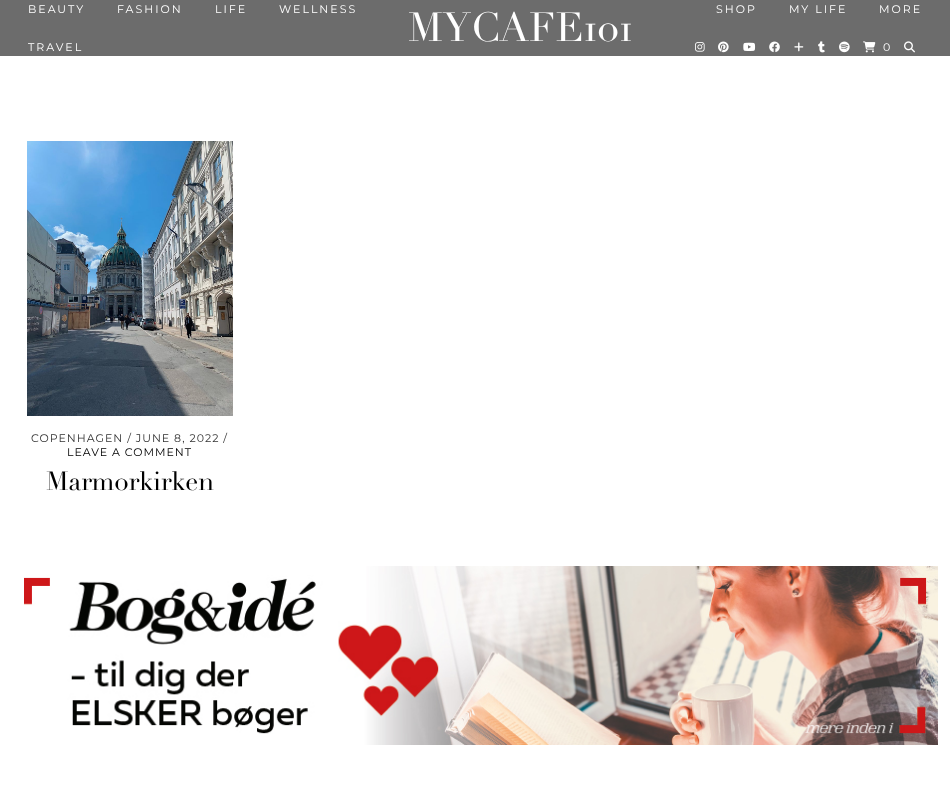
async function draw(canvas) {
	canvas.width = 950;
	canvas.height = 791;
	const c = canvas.getContext('2d');
	c.miterLimit = 4;
	c.fontKerning = 'normal';
	async function loadImage(src) {
		const img = new Image();
		img.src = src;
		await img.decode();
		return img;
	}

	c.fillStyle = '#fff';
	c.fillRect(0, 0, 950, 791);
	c.fillStyle = '#6c6c6c';
	c.fillRect(0, 0, 950, 56);
	c.letterSpacing = '2px';
	c.font = '100 11px Montserrat';
	c.fillStyle = '#fff';
	for (const [text, x, y] of [
		['BEAUTY', 28, 13],
		['FASHION', 117, 13],
		['LIFE', 215, 13],
		['WELLNESS', 279, 13],
		['TRAVEL', 28, 51],
	]) {
		c.fillText(text, x, y);
	}
	c.letterSpacing = '0px';
	c.font = '40px Didot';
	c.fillText('MYCAFE101', 408, 41);
	c.letterSpacing = '2px';
	c.font = '100 11px Montserrat';
	for (const [text, x, y] of [
		['SHOP', 716, 13],
		['MY LIFE', 789, 13],
		['MORE', 879, 13],
	]) {
		c.fillText(text, x, y);
	}
	c.drawImage(await loadImage('img1.png'), 695, 42, 10, 10);
	c.drawImage(await loadImage('img2.png'), 718, 41, 11, 12);
	c.drawImage(await loadImage('img3.png'), 743, 42, 13, 9);
	c.drawImage(await loadImage('img4.png'), 769, 41, 11, 12);
	c.drawImage(await loadImage('img5.png'), 794, 42, 10, 10);
	c.drawImage(await loadImage('img6.png'), 818, 41, 7, 12);
	c.drawImage(await loadImage('img7.png'), 839, 41, 11, 12);
	c.drawImage(await loadImage('img8.png'), 863, 41, 13, 12);
	c.fillText('0', 883, 51);
	c.drawImage(await loadImage('img9.png'), 904, 41, 11, 12);
	c.drawImage(await loadImage('img10.png'), 27, 141, 206, 275);
	c.letterSpacing = '1px';
	c.fillStyle = '#333';
	c.fillText('COPENHAGEN / JUNE 8, 2022 /', 31, 442);
	c.fillStyle = '#000';
	c.fillText('LEAVE A COMMENT', 67, 456);
	c.letterSpacing = '0px';
	c.font = '26px Didot';
	c.fillText('Marmorkirken', 46, 490);
	c.drawImage(await loadImage('img11.png'), 24, 566, 914, 179);
}

draw(document.querySelector('canvas'));
